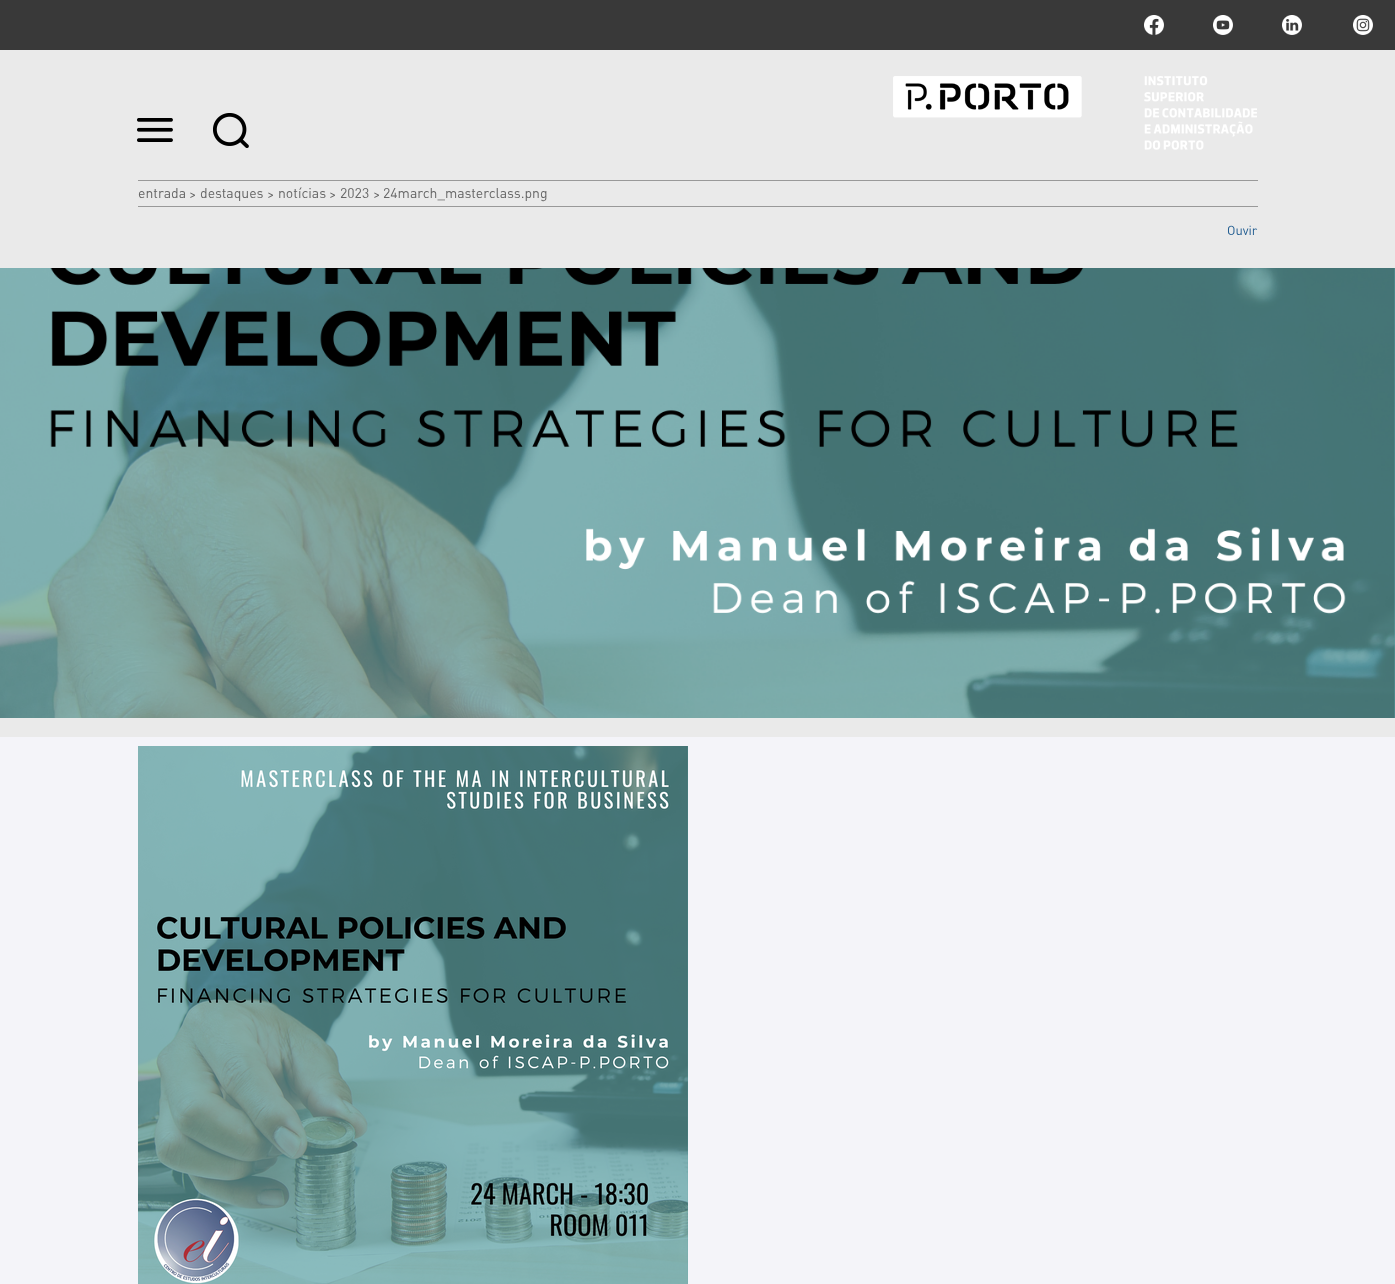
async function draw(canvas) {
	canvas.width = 1395;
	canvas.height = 1284;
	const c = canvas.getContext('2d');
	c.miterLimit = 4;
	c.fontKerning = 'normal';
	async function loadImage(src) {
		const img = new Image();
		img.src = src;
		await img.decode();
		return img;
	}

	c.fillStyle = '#f4f4f9';
	c.fillRect(0, 0, 1395, 1284);
	c.fillStyle = '#393939';
	c.fillRect(0, 0, 1395, 50);
	c.drawImage(await loadImage('img1.png'), 1144, 15, 20, 20);
	c.drawImage(await loadImage('img2.png'), 1213, 15, 20, 20);
	c.drawImage(await loadImage('img3.png'), 1282, 15, 20, 20);
	c.drawImage(await loadImage('img4.png'), 1353, 15, 20, 20);
	c.fillStyle = '#eaeaea';
	c.fillRect(0, 50, 1395, 687);
	c.drawImage(await loadImage('img5.png'), 137, 118, 36, 24);
	c.drawImage(await loadImage('img6.png'), 213, 113, 36, 35);
	c.drawImage(await loadImage('img7.png'), 893, 76, 364, 74);
	c.fillStyle = '#999';
	c.fillRect(138, 180, 1120, 1);
	c.fillRect(138, 206, 1120, 1);
	c.font = '14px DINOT';
	c.fillStyle = '#666';
	for (const [text, x, y] of [
		['entrada', 138, 198],
		['>', 189, 199],
		['destaques', 200, 198],
		['>', 267, 199],
		['notícias', 278, 198],
		['>', 329, 199],
		['2023', 340, 198],
		['>', 373, 199],
		['24march_masterclass.png', 383, 198],
	]) {
		c.fillText(text, x, y);
	}
	c.font = '13px DINOT';
	c.fillStyle = '#205c90';
	c.fillText('Ouvir', 1227, 235);
	c.drawImage(await loadImage('img8.png'), 0, 268, 1395, 450);
	c.drawImage(await loadImage('img9.png'), 138, 746, 550, 538);
}

draw(document.querySelector('canvas'));
